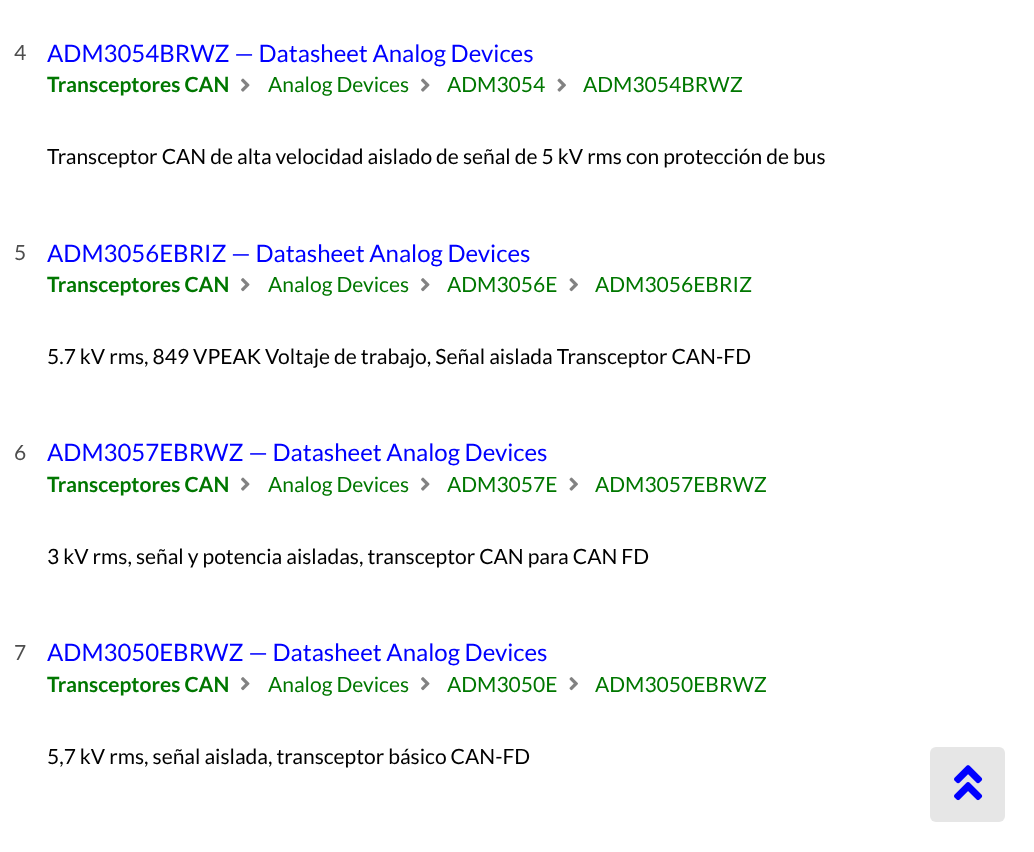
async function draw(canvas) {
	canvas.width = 1034;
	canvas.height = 852;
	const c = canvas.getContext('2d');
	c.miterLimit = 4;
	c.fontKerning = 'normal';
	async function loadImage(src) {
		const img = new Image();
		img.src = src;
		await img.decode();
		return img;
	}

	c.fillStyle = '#fff';
	c.fillRect(0, 0, 1034, 852);
	c.font = '21px Lato';
	c.fillStyle = '#4e4e4e';
	c.fillText('4', 14, 60);
	c.font = '24px Lato';
	c.fillStyle = '#00f';
	c.fillText('ADM3054BRWZ — Datasheet Analog Devices', 47, 62);
	c.font = 'bold 21px Lato';
	c.fillStyle = '#070';
	c.fillText('Transceptores CAN', 47, 92);
	c.drawImage(await loadImage('img1.png'), 241, 78, 9, 14);
	c.font = '21px Lato';
	c.fillText('Analog Devices', 268, 92);
	c.drawImage(await loadImage('img1.png'), 421, 78, 9, 14);
	c.fillText('ADM3054', 447, 92);
	c.drawImage(await loadImage('img2.png'), 557, 78, 9, 14);
	c.fillText('ADM3054BRWZ', 583, 92);
	c.fillStyle = '#000';
	c.fillText('Transceptor CAN de alta velocidad aislado de señal de 5 kV rms con protección de bus', 47, 164);
	c.fillStyle = '#4e4e4e';
	c.fillText('5', 14, 260);
	c.font = '24px Lato';
	c.fillStyle = '#00f';
	c.fillText('ADM3056EBRIZ — Datasheet Analog Devices', 47, 262);
	c.font = 'bold 21px Lato';
	c.fillStyle = '#070';
	c.fillText('Transceptores CAN', 47, 292);
	c.drawImage(await loadImage('img3.png'), 241, 278, 9, 14);
	c.font = '21px Lato';
	c.fillText('Analog Devices', 268, 292);
	c.drawImage(await loadImage('img3.png'), 421, 278, 9, 14);
	c.fillText('ADM3056E', 447, 292);
	c.drawImage(await loadImage('img4.png'), 569, 278, 9, 14);
	c.fillText('ADM3056EBRIZ', 595, 292);
	c.fillStyle = '#000';
	c.fillText('5.7 kV rms, 849 VPEAK Voltaje de trabajo, Señal aislada Transceptor CAN-FD', 47, 364);
	c.fillStyle = '#4e4e4e';
	c.fillText('6', 14, 460);
	c.font = '24px Lato';
	c.fillStyle = '#00f';
	c.fillText('ADM3057EBRWZ — Datasheet Analog Devices', 47, 461);
	c.font = 'bold 21px Lato';
	c.fillStyle = '#070';
	c.fillText('Transceptores CAN', 47, 492);
	c.drawImage(await loadImage('img1.png'), 241, 477, 9, 14);
	c.font = '21px Lato';
	c.fillText('Analog Devices', 268, 492);
	c.drawImage(await loadImage('img1.png'), 421, 477, 9, 14);
	c.fillText('ADM3057E', 447, 492);
	c.drawImage(await loadImage('img2.png'), 569, 477, 9, 14);
	c.fillText('ADM3057EBRWZ', 595, 492);
	c.fillStyle = '#000';
	c.fillText('3 kV rms, señal y potencia aisladas, transceptor CAN para CAN FD', 47, 564);
	c.fillStyle = '#4e4e4e';
	c.fillText('7', 14, 660);
	c.font = '24px Lato';
	c.fillStyle = '#00f';
	c.fillText('ADM3050EBRWZ — Datasheet Analog Devices', 47, 661);
	c.font = 'bold 21px Lato';
	c.fillStyle = '#070';
	c.fillText('Transceptores CAN', 47, 692);
	c.drawImage(await loadImage('img3.png'), 241, 677, 9, 14);
	c.font = '21px Lato';
	c.fillText('Analog Devices', 268, 692);
	c.drawImage(await loadImage('img3.png'), 421, 677, 9, 14);
	c.fillText('ADM3050E', 447, 692);
	c.drawImage(await loadImage('img4.png'), 569, 677, 9, 14);
	c.fillText('ADM3050EBRWZ', 595, 692);
	c.fillStyle = '#000';
	c.fillText('5,7 kV rms, señal aislada, transceptor básico CAN-FD', 47, 764);
	c.fillStyle = '#e6e6e6';
	c.beginPath();
	c.roundRect(930, 747, 75, 75, 6);
	c.fill();
	c.drawImage(await loadImage('img5.png'), 954, 765, 29, 36);
}

draw(document.querySelector('canvas'));
